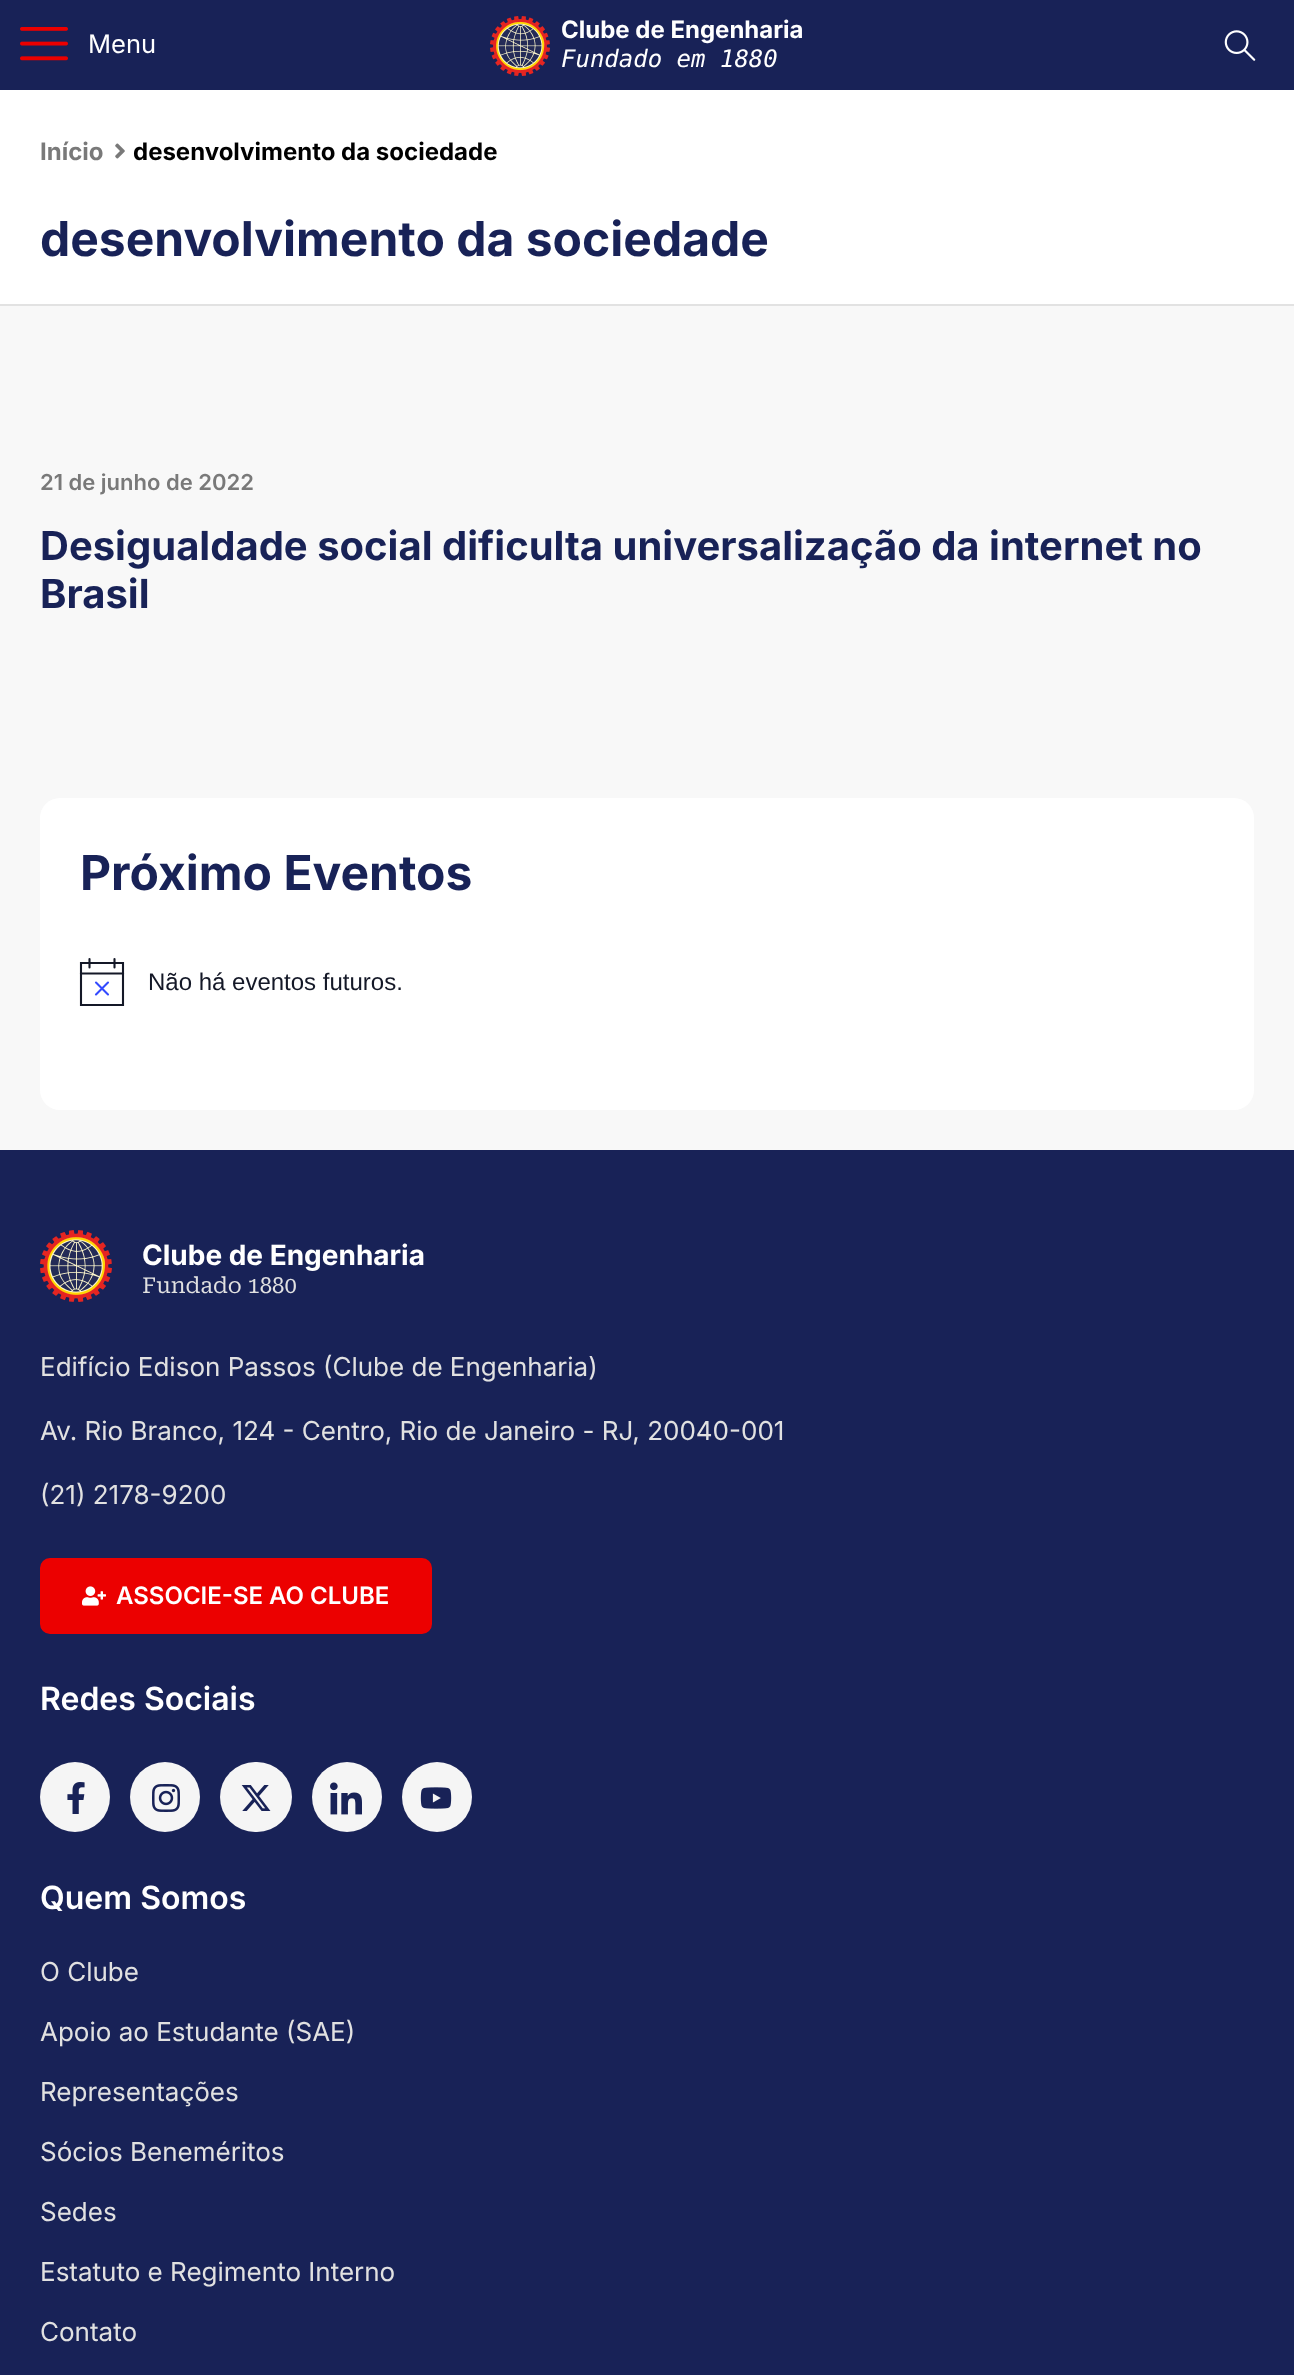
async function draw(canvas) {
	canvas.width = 1294;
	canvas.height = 2375;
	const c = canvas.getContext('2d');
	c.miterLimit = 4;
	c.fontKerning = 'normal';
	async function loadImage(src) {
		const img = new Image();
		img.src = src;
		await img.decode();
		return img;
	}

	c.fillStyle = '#f8f8f8';
	c.fillRect(0, 0, 1294, 2375);
	c.fillStyle = '#182257';
	c.fillRect(0, 0, 1294, 90);
	c.drawImage(await loadImage('img1.png'), 20, 27, 48, 34);
	c.font = '25.5px Inter';
	c.fillStyle = '#fff';
	c.fillText('Menu', 88, 53);
	c.drawImage(await loadImage('img2.png'), 490, 16, 60, 60);
	c.font = 'bold 24px Inter';
	c.fillText('Clube de Engenharia', 561, 38);
	c.font = 'italic 24px DejaVu Sans Mono';
	c.fillText('Fundado em 1880', 561, 67);
	c.drawImage(await loadImage('img3.png'), 1224, 30, 32, 31);
	c.fillRect(0, 90, 1294, 214);
	c.fillStyle = '#e2e2e2';
	c.fillRect(0, 304, 1294, 2);
	c.font = 'bold 24px Inter';
	c.fillStyle = '#797979';
	c.fillText('Início', 40, 160);
	c.drawImage(await loadImage('img4.png'), 115, 143, 10, 16);
	c.fillStyle = '#000';
	c.fillText('desenvolvimento da sociedade', 133, 160);
	c.font = 'bold 48px Inter';
	c.fillStyle = '#182257';
	c.fillText('desenvolvimento da sociedade', 40, 256);
	c.font = '600 22px Inter';
	c.fillStyle = '#797979';
	c.fillText('21 de junho de 2022', 40, 490);
	c.font = 'bold 40px Inter';
	c.fillStyle = '#182257';
	c.fillText('Desigualdade social dificulta universalização da internet no', 40, 560);
	c.fillText('Brasil', 40, 608);
	c.fillStyle = '#fff';
	c.beginPath();
	c.roundRect(40, 798, 1214, 312, 20);
	c.fill();
	c.font = 'bold 48px Inter';
	c.fillStyle = '#182257';
	c.fillText('Próximo Eventos', 80, 890);
	c.beginPath();
	c.moveTo(81, 963);
	c.lineTo(123, 963);
	c.lineTo(123, 1005);
	c.lineTo(81, 1005);
	c.closePath();
	c.strokeStyle = '#141827';
	c.lineWidth = 2.1;
	c.stroke();
	c.beginPath();
	c.moveTo(96, 982.5);
	c.lineTo(108, 994.5);
	c.moveTo(108, 982.5);
	c.lineTo(96, 994.5);
	c.strokeStyle = '#334aff';
	c.lineCap = 'round';
	c.stroke();
	c.beginPath();
	c.moveTo(89.5, 959);
	c.lineTo(89.5, 967.5);
	c.moveTo(114.5, 959);
	c.lineTo(114.5, 967.5);
	c.strokeStyle = '#141827';
	c.stroke();
	c.beginPath();
	c.moveTo(81, 973.5);
	c.lineTo(123, 973.5);
	c.lineCap = 'square';
	c.stroke();
	c.font = '24px Liberation Sans';
	c.fillStyle = '#141827';
	c.fillText('Não há eventos futuros.', 148, 990);
	c.fillStyle = '#182257';
	c.fillRect(0, 1150, 1294, 1225);
	c.drawImage(await loadImage('img5.png'), 40, 1230, 72, 72);
	c.font = 'bold 28px Inter';
	c.fillStyle = '#fff';
	c.fillText('Clube de Engenharia', 142, 1265);
	c.font = 'italic 22px Roboto Serif';
	c.fillStyle = '#e1e1e1';
	c.fillText('Fundado 1880', 142, 1293);
	c.font = '26px Inter';
	for (const [text, x, y] of [
		['Edifício Edison Passos (Clube de Engenharia)', 40, 1376],
		['Av. Rio Branco, 124 - Centro, Rio de Janeiro - RJ, 20040-001', 40, 1440],
		['(21) 2178-9200', 40, 1504],
	]) {
		c.fillText(text, x, y);
	}
	c.fillStyle = '#ec0000';
	c.beginPath();
	c.roundRect(41, 1559, 390, 74, 9);
	c.fill();
	c.strokeStyle = '#ec0000';
	c.lineWidth = 2;
	c.stroke();
	c.drawImage(await loadImage('img6.png'), 82, 1586, 24, 20);
	c.font = '600 24px Inter';
	c.fillStyle = '#fff';
	c.fillText('ASSOCIE-SE AO CLUBE', 116, 1604);
	c.font = '600 32px Inter';
	c.fillText('Redes Sociais', 40, 1710);
	c.fillStyle = '#f5f5f5';
	c.beginPath();
	c.arc(75, 1797, 35, 0, 2 * Math.PI);
	c.fill();
	c.drawImage(await loadImage('img7.png'), 67, 1782, 18, 32);
	c.beginPath();
	c.arc(165, 1797, 35, 0, 2 * Math.PI);
	c.fill();
	c.drawImage(await loadImage('img8.png'), 152, 1784, 28, 28);
	c.beginPath();
	c.roundRect(220, 1762, 72, 70, 35);
	c.fill();
	c.drawImage(await loadImage('img9.png'), 241, 1785, 30, 26);
	c.beginPath();
	c.arc(347, 1797, 35, 0, 2 * Math.PI);
	c.fill();
	c.drawImage(await loadImage('img10.png'), 330, 1782, 32, 33);
	c.beginPath();
	c.arc(437, 1797, 35, 0, 2 * Math.PI);
	c.fill();
	c.drawImage(await loadImage('img11.png'), 420, 1787, 32, 22);
	c.fillStyle = '#fff';
	c.fillText('Quem Somos', 40, 1909);
	c.font = '26px Inter';
	c.fillStyle = '#e1e1e1';
	for (const [text, x, y] of [
		['O Clube', 40, 1981],
		['Apoio ao Estudante (SAE)', 40, 2041],
		['Representações', 40, 2101],
		['Sócios Beneméritos', 40, 2161],
		['Sedes', 40, 2221],
		['Estatuto e Regimento Interno', 40, 2281],
		['Contato', 40, 2341],
	]) {
		c.fillText(text, x, y);
	}
}

draw(document.querySelector('canvas'));
